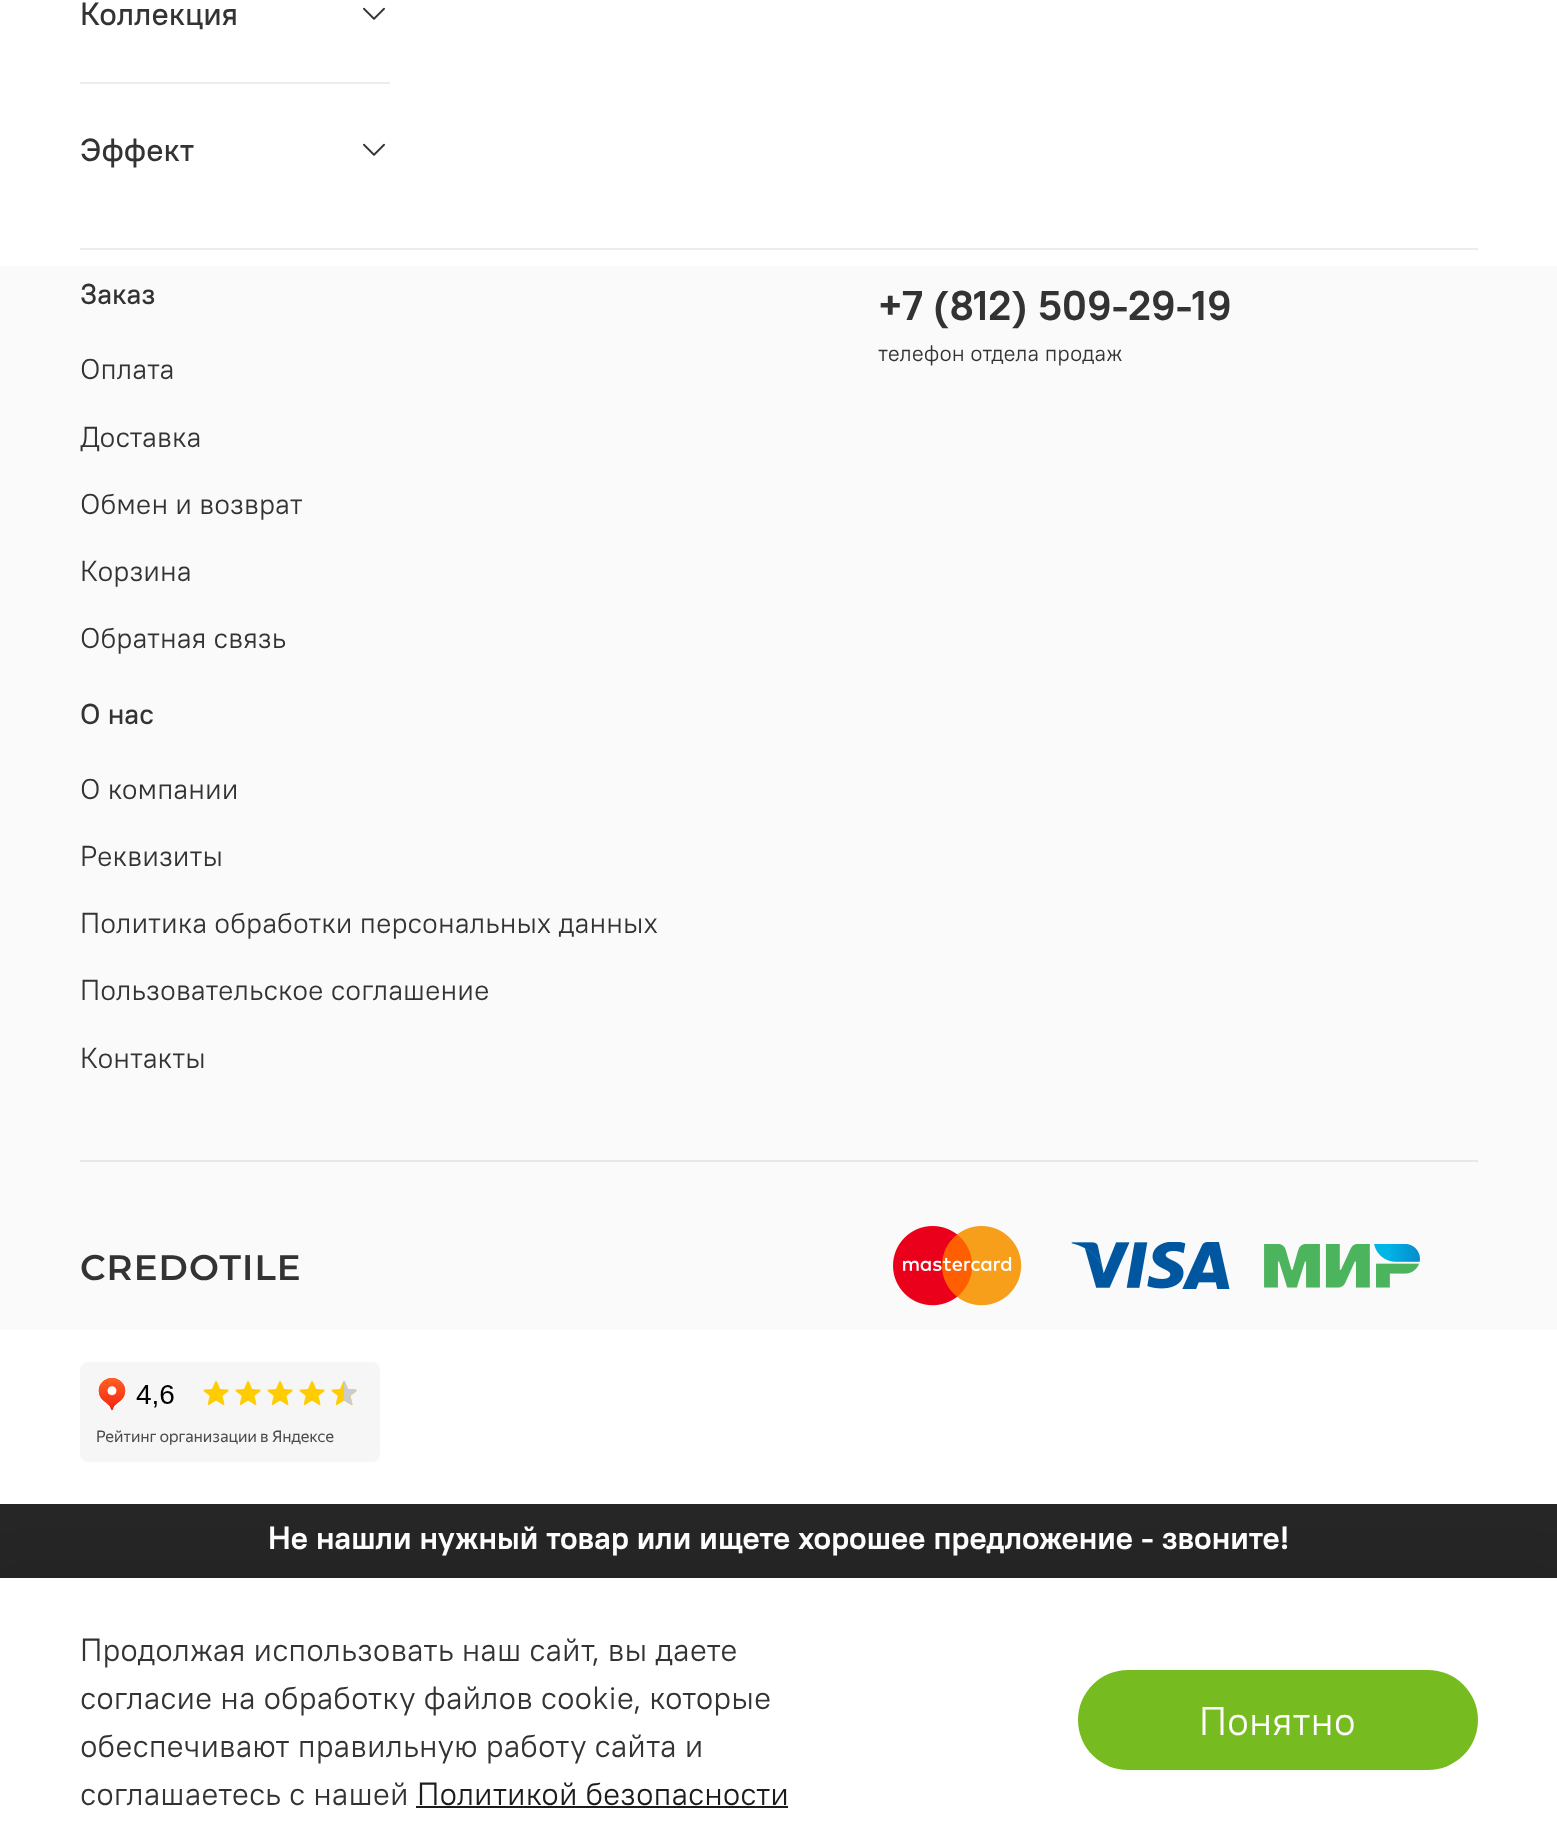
async function draw(canvas) {
	canvas.width = 1557;
	canvas.height = 1847;
	const c = canvas.getContext('2d');
	c.miterLimit = 4;
	c.fontKerning = 'normal';
	async function loadImage(src) {
		const img = new Image();
		img.src = src;
		await img.decode();
		return img;
	}

	c.fillStyle = '#fff';
	c.fillRect(0, 0, 1557, 1847);
	c.fillStyle = '#ededed';
	c.fillRect(80, 82, 310, 2);
	c.font = '500 32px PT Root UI';
	c.fillStyle = '#333';
	c.fillText('Коллекция', 80, 25);
	c.drawImage(await loadImage('img1.png'), 363, 7, 22, 13);
	c.fillText('Эффект', 80, 161);
	c.drawImage(await loadImage('img1.png'), 363, 143, 22, 13);
	c.fillStyle = '#ededed';
	c.fillRect(80, 248, 1398, 2);
	c.fillStyle = '#fafafa';
	c.fillRect(0, 266, 1557, 1064);
	c.font = '500 28.8px PT Root UI';
	c.fillStyle = '#333';
	c.fillText('Заказ', 80, 304);
	c.font = '28.8px PT Root UI';
	for (const [text, x, y] of [
		['Оплата', 80, 379],
		['Доставка', 80, 447],
		['Обмен и возврат', 80, 514],
		['Корзина', 80, 581],
		['Обратная связь', 80, 648],
	]) {
		c.fillText(text, x, y);
	}
	c.font = '500 28.8px PT Root UI';
	c.fillText('О нас', 80, 724);
	c.font = '28.8px PT Root UI';
	for (const [text, x, y] of [
		['О компании', 80, 799],
		['Реквизиты', 80, 866],
		['Политика обработки персональных данных', 80, 933],
		['Пользовательское соглашение', 80, 1000],
		['Контакты', 80, 1068],
	]) {
		c.fillText(text, x, y);
	}
	c.font = 'bold 41.5px PT Root UI';
	c.fillText('+7 (812) 509-29-19', 878, 320);
	c.font = '22.4px PT Root UI';
	c.fillText('телефон отдела продаж', 878, 361);
	c.fillStyle = '#e8e8e8';
	c.fillRect(80, 1160, 1398, 2);
	c.drawImage(await loadImage('img2.png'), 81, 1254, 218, 27);
	c.drawImage(await loadImage('img3.png'), 893, 1226, 129, 80);
	c.drawImage(await loadImage('img4.png'), 1071, 1242, 159, 47);
	c.drawImage(await loadImage('img5.png'), 1264, 1244, 156, 44);
	c.drawImage(await loadImage('img6.png'), 80, 1362, 300, 100);
	c.fillStyle = '#262626';
	c.fillRect(0, 1504, 1557, 74);
	c.font = 'bold 32px PT Root UI';
	c.fillStyle = '#fff';
	c.fillText('Не нашли нужный товар или ищете хорошее предложение - звоните!', 268, 1549);
	c.fillStyle = '#00000017';
	c.filter = 'blur(23px)';
	c.beginPath();
	c.rect(-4, 1572, 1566, 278);
	c.fill();
	c.filter = 'none';
	c.fillStyle = '#fff';
	c.fillRect(0, 1578, 1557, 269);
	c.font = '32px PT Root UI';
	c.fillStyle = '#333';
	for (const [text, x, y] of [
		['Продолжая использовать наш сайт, вы даете', 80, 1661],
		['согласие на обработку файлов cookie, которые', 80, 1709],
		['обеспечивают правильную работу сайта и', 80, 1757],
		['соглашаетесь с нашей', 80, 1805],
	]) {
		c.fillText(text, x, y);
	}
	c.fillStyle = '#1c1c1c';
	c.fillText('Политикой безопасности', 417, 1805);
	c.fillRect(416, 1806, 372, 2);
	c.fillStyle = '#76bc21';
	c.beginPath();
	c.roundRect(1078, 1670, 400, 100, 50);
	c.fill();
	c.font = '40px PT Root UI';
	c.fillStyle = '#fff';
	c.fillText('Понятно', 1199, 1735);
}

draw(document.querySelector('canvas'));
